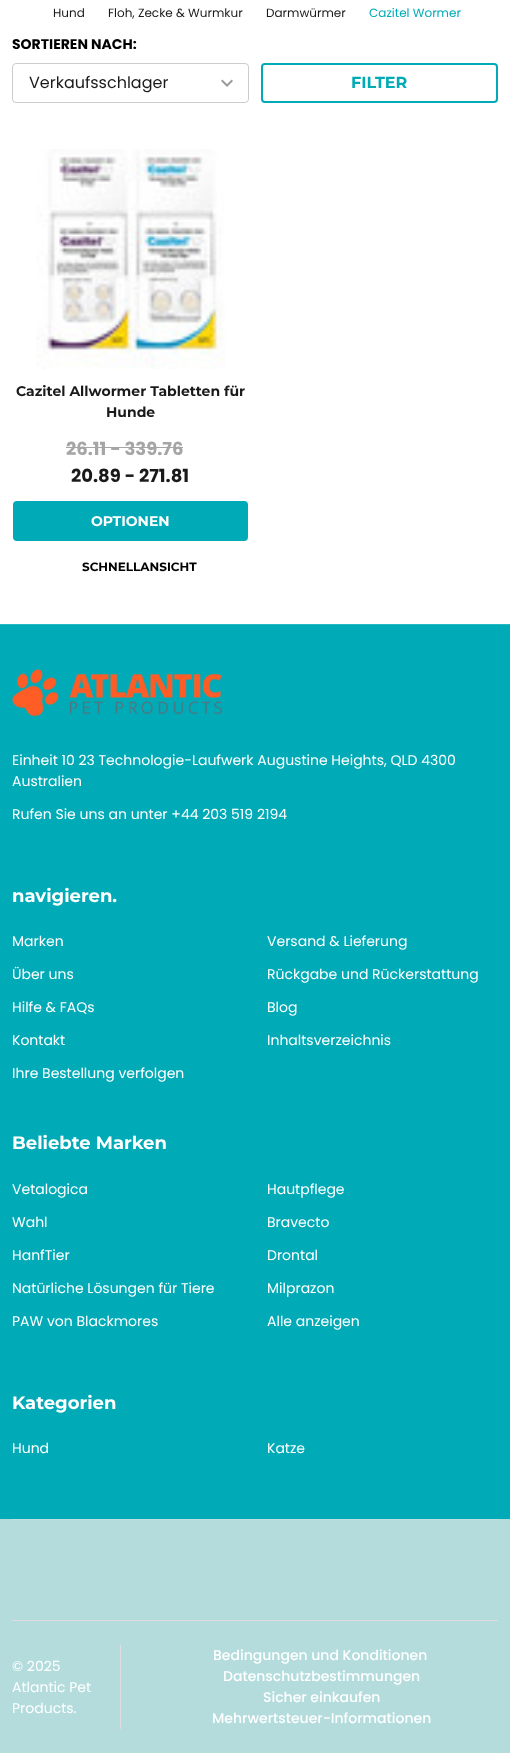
async function draw(canvas) {
	canvas.width = 510;
	canvas.height = 1753;
	const c = canvas.getContext('2d');
	c.miterLimit = 4;
	c.fontKerning = 'normal';
	async function loadImage(src) {
		const img = new Image();
		img.src = src;
		await img.decode();
		return img;
	}

	c.fillStyle = '#fff';
	c.fillRect(0, 0, 510, 1753);
	c.font = '12px Poppins';
	c.fillStyle = '#1a1a1a';
	for (const [text, x, y] of [
		['Hund', 53, 17],
		['Floh, Zecke & Wurmkur', 108, 17],
		['Darmwürmer', 266, 17],
	]) {
		c.fillText(text, x, y);
	}
	c.fillStyle = '#00abb7';
	c.fillText('Cazitel Wormer', 369, 17);
	c.font = 'bold 14px Poppins';
	c.fillStyle = '#000';
	c.fillText('SORTIEREN NACH:', 12, 49);
	c.drawImage(await loadImage('img1.png'), 221, 79, 12, 8);
	c.beginPath();
	c.roundRect(12.5, 63.5, 236, 39, 3.5);
	c.strokeStyle = '#ccc';
	c.stroke();
	c.font = '16px Poppins';
	c.fillStyle = '#1a1a1a';
	c.fillText('Verkaufsschlager', 29, 88);
	c.beginPath();
	c.roundRect(262, 64, 235, 38, 3);
	c.strokeStyle = '#00abb7';
	c.lineWidth = 2;
	c.stroke();
	c.font = '100 16px Montserrat';
	c.fillStyle = '#00abb7';
	c.fillText('FILTER', 351, 88);
	c.drawImage(await loadImage('img2.png'), 36, 149, 189, 220);
	c.font = '100 14px Montserrat';
	c.fillStyle = '#1a1a1a';
	c.fillText('Cazitel Allwormer Tabletten für', 16, 396);
	c.fillText('Hunde', 106, 417);
	c.font = 'bold 18px Poppins';
	c.fillStyle = '#a5a5a5';
	c.fillText('26.11 - 339.76', 66, 455);
	c.fillRect(66, 447, 117, 1);
	c.fillStyle = '#1a1a1a';
	c.fillText('20.89 - 271.81', 71, 482);
	c.fillStyle = '#00abb7';
	c.beginPath();
	c.roundRect(13, 501, 235, 40, 4);
	c.fill();
	c.font = '100 14px Montserrat';
	c.fillStyle = '#fff';
	c.fillText('OPTIONEN', 91, 526);
	c.font = '100 12px Montserrat';
	c.fillStyle = '#000';
	c.fillText('SCHNELLANSICHT', 82, 571);
	c.fillStyle = '#00abb7';
	c.fillRect(0, 625, 510, 894);
	c.fillStyle = '#26b8c2';
	c.fillRect(0, 624, 510, 1);
	c.drawImage(await loadImage('img3.png'), 12, 669, 210, 48);
	c.font = '14px Poppins';
	c.fillStyle = '#fff';
	for (const [text, x, y] of [
		['Einheit 10 23 Technologie-Laufwerk Augustine Heights, QLD 4300', 12, 765],
		['Australien', 12, 786],
		['Rufen Sie uns an unter +44 203 519 2194', 12, 819],
	]) {
		c.fillText(text, x, y);
	}
	c.font = '100 18px Montserrat';
	c.fillText('navigieren.', 12, 902);
	c.font = '14px Poppins';
	for (const [text, x, y] of [
		['Marken', 12, 946],
		['Versand & Lieferung', 267, 946],
		['Über uns', 12, 979],
		['Rückgabe und Rückerstattung', 267, 979],
		['Hilfe & FAQs', 12, 1012],
		['Blog', 267, 1012],
		['Kontakt', 12, 1045],
		['Inhaltsverzeichnis', 267, 1045],
		['Ihre Bestellung verfolgen', 12, 1078],
	]) {
		c.fillText(text, x, y);
	}
	c.font = '100 18px Montserrat';
	c.fillText('Beliebte Marken', 12, 1149);
	c.font = '14px Poppins';
	for (const [text, x, y] of [
		['Vetalogica', 12, 1194],
		['Hautpflege', 267, 1194],
		['Wahl', 12, 1227],
		['Bravecto', 267, 1227],
		['HanfTier', 12, 1260],
		['Drontal', 267, 1260],
		['Natürliche Lösungen für Tiere', 12, 1293],
		['Milprazon', 267, 1293],
		['PAW von Blackmores', 12, 1326],
		['Alle anzeigen', 267, 1326],
	]) {
		c.fillText(text, x, y);
	}
	c.font = '100 18px Montserrat';
	c.fillText('Kategorien', 12, 1409);
	c.font = '14px Poppins';
	c.fillText('Hund', 12, 1453);
	c.fillText('Katze', 267, 1453);
	for (const [x, y, w, h, color] of [
		[0, 1519, 510, 234, '#b5dcdd'],
		[12, 1519, 486, 1, '#c0e1e2'],
		[12, 1620, 486, 1, '#ddd'],
	]) {
		c.fillStyle = color;
		c.fillRect(x, y, w, h);
	}
	c.fillStyle = '#fff';
	for (const [text, x, y] of [
		['© 2025', 12, 1671],
		['Atlantic Pet', 12, 1692],
		['Products.', 12, 1713],
	]) {
		c.fillText(text, x, y);
	}
	c.fillStyle = '#ddd';
	c.fillRect(120, 1645, 1, 84);
	c.font = '500 14px Poppins';
	c.fillStyle = '#fff';
	for (const [text, x, y] of [
		['Bedingungen und Konditionen', 213, 1660],
		['Datenschutzbestimmungen', 223, 1681],
		['Sicher einkaufen', 263, 1702],
		['Mehrwertsteuer-Informationen', 212, 1723],
	]) {
		c.fillText(text, x, y);
	}
}

draw(document.querySelector('canvas'));
